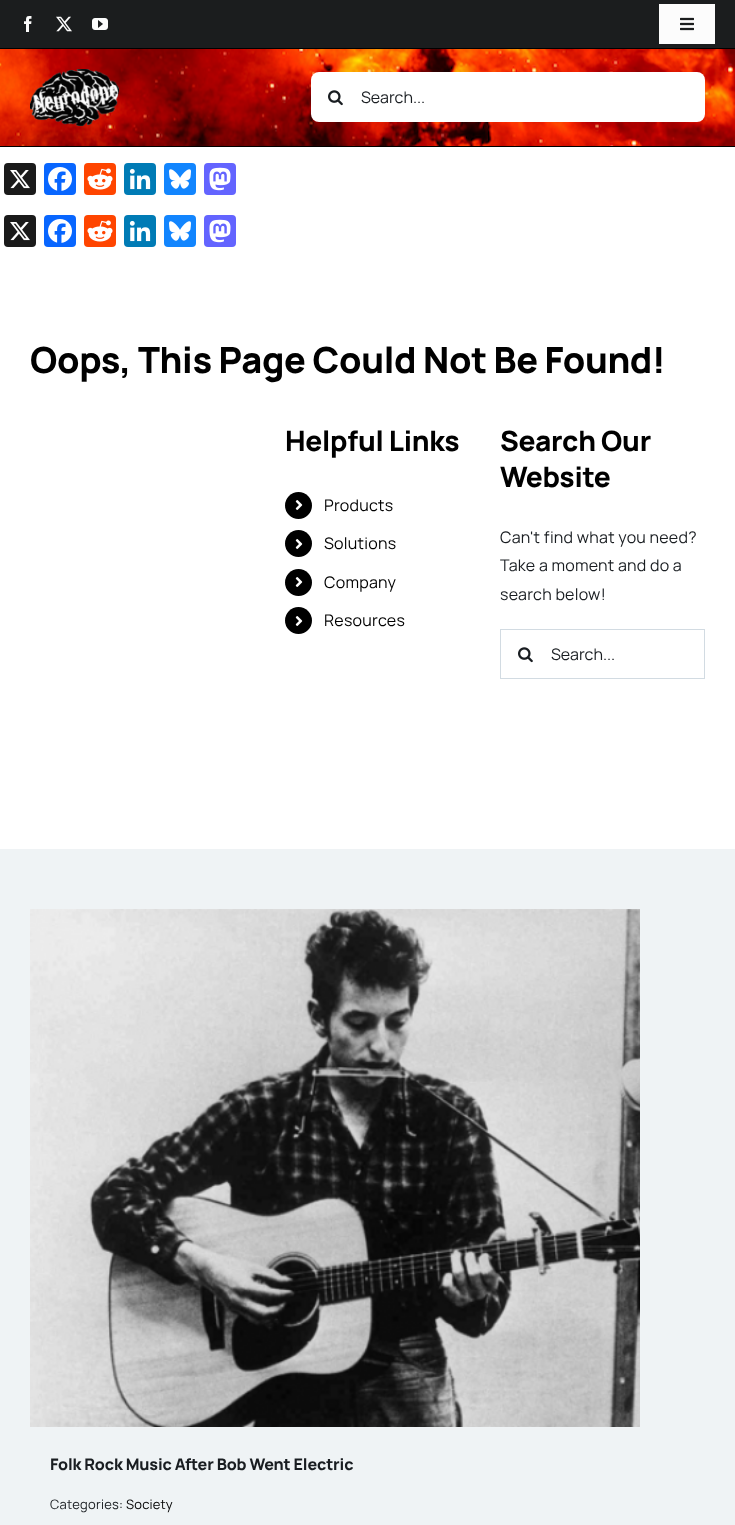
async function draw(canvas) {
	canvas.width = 735;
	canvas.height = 1525;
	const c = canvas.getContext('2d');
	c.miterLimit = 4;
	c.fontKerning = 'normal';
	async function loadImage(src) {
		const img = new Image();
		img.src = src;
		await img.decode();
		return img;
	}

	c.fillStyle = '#fff';
	c.fillRect(0, 0, 735, 1525);
	c.fillStyle = '#1b1d1e';
	c.fillRect(0, 0, 735, 48);
	c.fillStyle = '#000';
	c.fillRect(0, 48, 735, 1);
	c.drawImage(await loadImage('img1.png'), 24, 16, 8, 16);
	c.drawImage(await loadImage('img2.png'), 56, 16, 16, 16);
	c.drawImage(await loadImage('img3.png'), 92, 18, 16, 12);
	c.fillStyle = '#fcfcfc';
	c.fillRect(659, 4, 56, 40);
	c.drawImage(await loadImage('img4.png'), 680, 17, 14, 14);
	c.drawImage(await loadImage('img5.png'), 0, 49, 735, 97);
	c.fillStyle = '#000';
	c.fillRect(0, 146, 735, 1);
	c.drawImage(await loadImage('img6.png'), 30, 69, 89, 57);
	c.fillStyle = '#fff';
	c.beginPath();
	c.roundRect(311, 72, 394, 50, 8);
	c.fill();
	c.drawImage(await loadImage('img7.png'), 328, 90, 15, 16);
	c.font = '16px Manrope';
	c.fillStyle = '#191d21';
	c.fillText('Search...', 361, 103);
	c.fillStyle = '#1a1a1a';
	c.beginPath();
	c.roundRect(4, 163, 32, 32, 4);
	c.fill();
	c.drawImage(await loadImage('img8.png'), 10, 170, 20, 19);
	c.fillStyle = '#0866ff';
	c.beginPath();
	c.roundRect(44, 163, 32, 32, 4);
	c.fill();
	c.drawImage(await loadImage('img9.png'), 48, 167, 24, 24);
	c.fillStyle = '#ff4500';
	c.beginPath();
	c.roundRect(84, 163, 32, 32, 4);
	c.fill();
	c.drawImage(await loadImage('img10.png'), 87, 168, 26, 22);
	c.fillStyle = '#007bb5';
	c.beginPath();
	c.roundRect(124, 163, 32, 32, 4);
	c.fill();
	c.drawImage(await loadImage('img11.png'), 129, 168, 22, 22);
	c.fillStyle = '#1285fe';
	c.beginPath();
	c.roundRect(164, 163, 32, 32, 4);
	c.fill();
	c.drawImage(await loadImage('img12.png'), 169, 169, 22, 20);
	c.fillStyle = '#6364ff';
	c.beginPath();
	c.roundRect(204, 163, 32, 32, 4);
	c.fill();
	c.drawImage(await loadImage('img13.png'), 209, 167, 22, 24);
	c.fillStyle = '#1a1a1a';
	c.beginPath();
	c.roundRect(4, 215, 32, 32, 4);
	c.fill();
	c.drawImage(await loadImage('img8.png'), 10, 222, 20, 19);
	c.fillStyle = '#0866ff';
	c.beginPath();
	c.roundRect(44, 215, 32, 32, 4);
	c.fill();
	c.drawImage(await loadImage('img9.png'), 48, 219, 24, 24);
	c.fillStyle = '#ff4500';
	c.beginPath();
	c.roundRect(84, 215, 32, 32, 4);
	c.fill();
	c.drawImage(await loadImage('img10.png'), 87, 220, 26, 22);
	c.fillStyle = '#007bb5';
	c.beginPath();
	c.roundRect(124, 215, 32, 32, 4);
	c.fill();
	c.drawImage(await loadImage('img11.png'), 129, 220, 22, 22);
	c.fillStyle = '#1285fe';
	c.beginPath();
	c.roundRect(164, 215, 32, 32, 4);
	c.fill();
	c.drawImage(await loadImage('img12.png'), 169, 221, 22, 20);
	c.fillStyle = '#6364ff';
	c.beginPath();
	c.roundRect(204, 215, 32, 32, 4);
	c.fill();
	c.drawImage(await loadImage('img13.png'), 209, 219, 22, 24);
	c.letterSpacing = '-0.35px';
	c.font = '800 36px Manrope';
	c.fillStyle = '#000';
	c.fillText('Oops, This Page Could Not Be Found!', 30, 373);
	c.letterSpacing = '-0.25px';
	c.font = '800 28px Manrope';
	c.fillText('Helpful Links', 285, 451);
	c.beginPath();
	c.arc(298.5, 505.5, 13.5, 0, 2 * Math.PI);
	c.fill();
	c.drawImage(await loadImage('img14.png'), 295, 500, 8, 10);
	c.letterSpacing = '0.25px';
	c.font = '16px Manrope';
	c.fillText('Products', 324, 511);
	c.beginPath();
	c.arc(298.5, 543.5, 13.5, 0, 2 * Math.PI);
	c.fill();
	c.drawImage(await loadImage('img14.png'), 295, 539, 8, 10);
	c.fillText('Solutions', 324, 549);
	c.beginPath();
	c.arc(298.5, 582.5, 13.5, 0, 2 * Math.PI);
	c.fill();
	c.drawImage(await loadImage('img14.png'), 295, 577, 8, 10);
	c.fillText('Company', 324, 588);
	c.beginPath();
	c.arc(298.5, 620.5, 13.5, 0, 2 * Math.PI);
	c.fill();
	c.drawImage(await loadImage('img14.png'), 295, 616, 8, 10);
	c.fillText('Resources', 324, 626);
	c.letterSpacing = '-0.25px';
	c.font = '800 28px Manrope';
	c.fillText('Search Our', 500, 451);
	c.fillText('Website', 500, 487);
	c.letterSpacing = '0.25px';
	c.font = '16px Manrope';
	c.fillStyle = '#191d21';
	for (const [text, x, y] of [
		['Can\'t find what you need?', 500, 543],
		['Take a moment and do a', 500, 571],
		['search below!', 500, 600],
	]) {
		c.fillText(text, x, y);
	}
	c.strokeStyle = '#d2dbe2';
	c.strokeRect(500.5, 629.5, 204, 49);
	c.drawImage(await loadImage('img7.png'), 518, 647, 15, 16);
	c.letterSpacing = '0px';
	c.fillText('Search...', 551, 660);
	c.fillStyle = '#eff3f5';
	c.fillRect(0, 849, 735, 676);
	c.drawImage(await loadImage('img15.png'), 30, 909, 610, 518);
	c.letterSpacing = '-0.15px';
	c.font = '800 16px Manrope';
	c.fillStyle = '#191d21';
	c.fillText('Folk Rock Music After Bob Went Electric', 50, 1470);
	c.letterSpacing = '0.25px';
	c.font = '13px Manrope';
	c.fillText('Categories:', 50, 1509);
	c.fillStyle = '#000';
	c.fillText('Society', 126, 1509);
}

draw(document.querySelector('canvas'));
